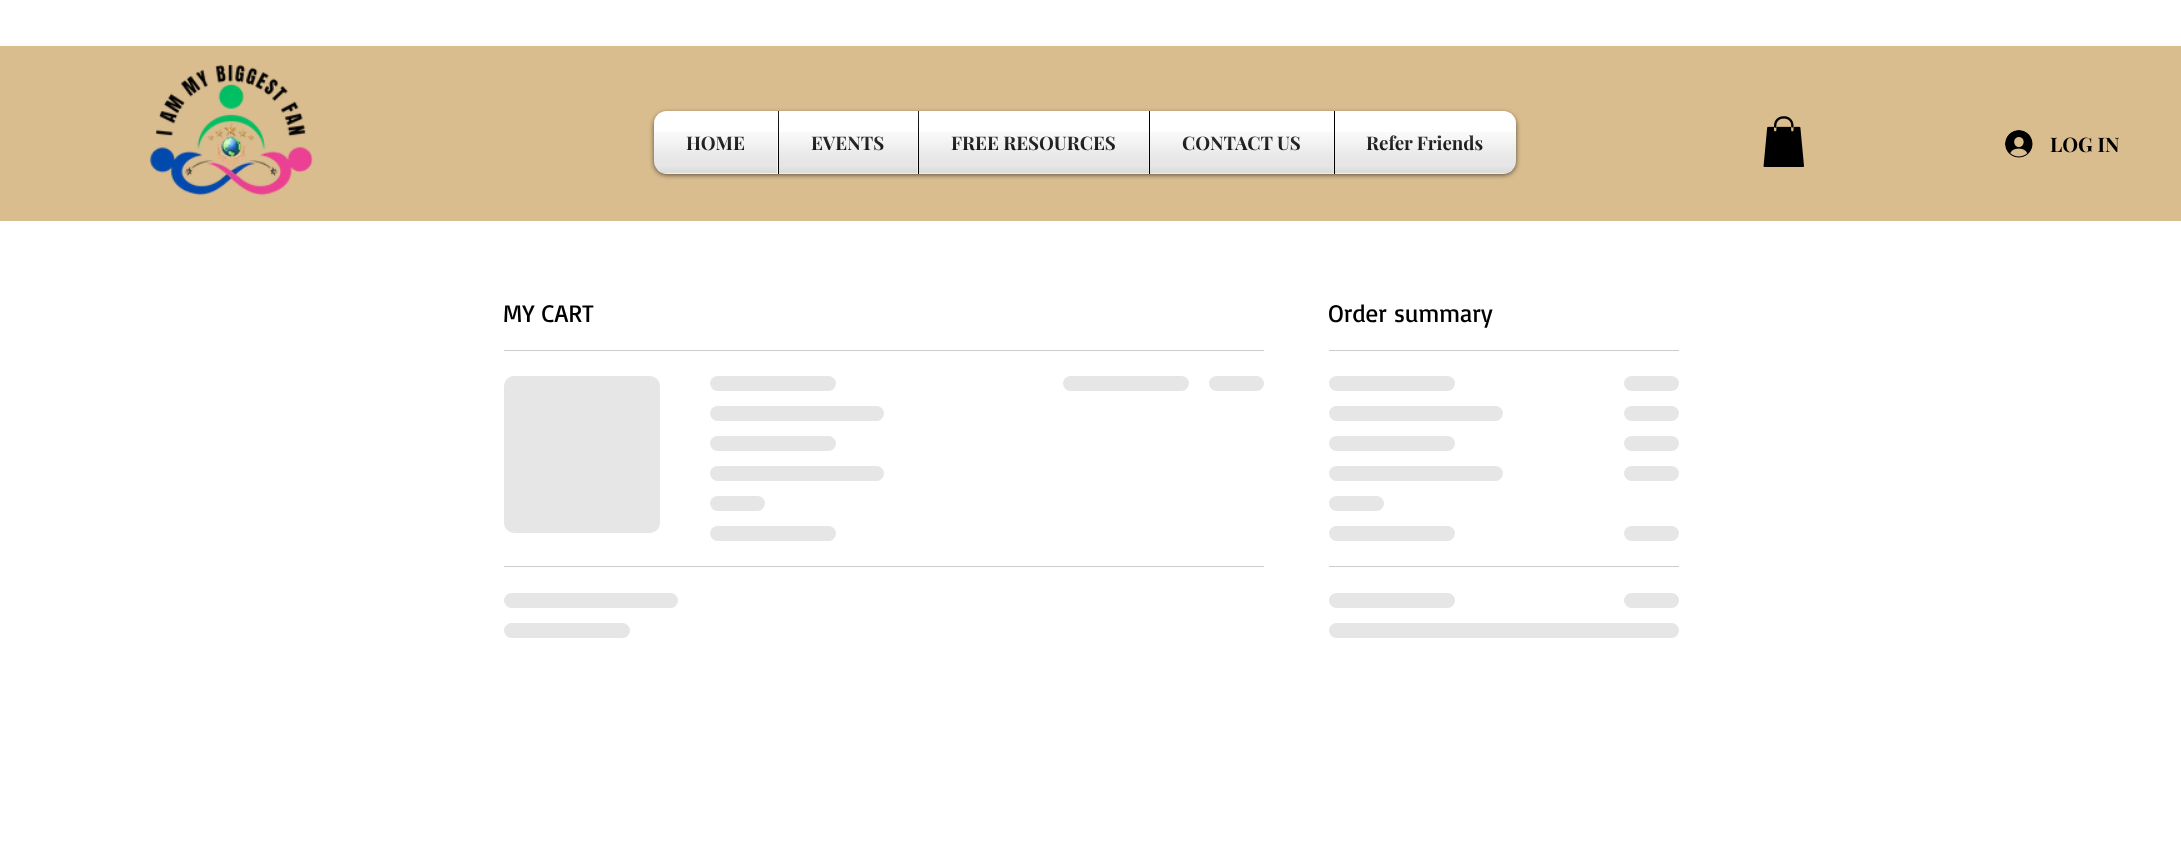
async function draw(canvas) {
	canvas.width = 2181;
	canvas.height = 844;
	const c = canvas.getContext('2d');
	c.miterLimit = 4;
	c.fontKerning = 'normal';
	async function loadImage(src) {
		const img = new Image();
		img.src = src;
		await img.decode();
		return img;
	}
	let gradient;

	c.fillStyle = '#fff';
	c.fillRect(0, 0, 2181, 844);
	c.fillStyle = '#dabd8f';
	c.fillRect(0, 46, 2181, 175);
	c.drawImage(await loadImage('img1.png'), 149, 64, 164, 132);
	c.fillStyle = '#00000099';
	c.filter = 'blur(2.5px)';
	c.beginPath();
	c.roundRect(654, 113, 862, 62, 13);
	c.fill();
	c.filter = 'none';
	c.drawImage(await loadImage('img2.png'), 654, 111, 862, 12);
	c.drawImage(await loadImage('img3.png'), 654, 161, 862, 13);
	c.fillStyle = '#fff';
	c.beginPath();
	c.roundRect(654, 111, 124, 63, [13, 0, 0, 13]);
	c.fill();
	c.font = 'bold 18.75px Playfair Display';
	c.fillStyle = '#000';
	c.fillText('HOME', 686, 150);
	c.drawImage(await loadImage('img4.png'), 654, 113, 90, 38);
	c.drawImage(await loadImage('img5.png'), 654, 132, 124, 42);
	c.fillStyle = '#fff';
	c.fillRect(779, 111, 139, 63);
	c.fillStyle = '#000';
	c.fillRect(778, 111, 1, 63);
	c.fillText('EVENTS', 811, 150);
	c.drawImage(await loadImage('img6.png'), 778, 111, 106, 42);
	c.drawImage(await loadImage('img7.png'), 779, 132, 139, 42);
	c.fillStyle = '#fff';
	c.fillRect(919, 111, 230, 63);
	c.fillStyle = '#000';
	c.fillRect(918, 111, 1, 63);
	c.fillText('FREE RESOURCES', 951, 150);
	c.drawImage(await loadImage('img8.png'), 918, 111, 197, 42);
	c.drawImage(await loadImage('img9.png'), 919, 132, 230, 42);
	c.fillStyle = '#fff';
	c.fillRect(1150, 111, 184, 63);
	c.fillStyle = '#000';
	c.fillRect(1149, 111, 1, 63);
	c.fillText('CONTACT US', 1182, 150);
	c.drawImage(await loadImage('img10.png'), 1182, 136, 118, 15);
	c.drawImage(await loadImage('img11.png'), 1150, 132, 184, 42);
	c.fillStyle = '#fff';
	c.beginPath();
	c.roundRect(1334, 111, 182, 63, [0, 13, 13, 0]);
	c.fill();
	c.fillStyle = '#000';
	c.fillRect(1334, 111, 1, 63);
	c.fillText('Refer Friends', 1366, 150);
	c.drawImage(await loadImage('img12.png'), 1367, 113, 149, 38);
	c.drawImage(await loadImage('img13.png'), 1335, 132, 181, 42);
	c.drawImage(await loadImage('img14.png'), 1763, 116, 41, 51);
	c.drawImage(await loadImage('img15.png'), 2005, 130, 28, 28);
	c.font = 'bold 20px Playfair Display';
	c.fillText('LOG IN', 2050, 152);
	c.fillStyle = '#ccc';
	c.fillRect(504, 350, 760, 1);
	c.font = '25px Basic';
	c.fillStyle = '#000';
	c.fillText('MY CART', 503, 322);
	gradient = c.createLinearGradient(504, 454, 1129, 454);
	gradient.addColorStop(0.25, '#e6e6e6');
	gradient.addColorStop(0.37, '#ccc');
	gradient.addColorStop(0.63, '#e6e6e6');
	c.fillStyle = gradient;
	c.beginPath();
	c.roundRect(504, 376, 156, 157, 10);
	c.fill();
	gradient = c.createLinearGradient(710, 384, 1215, 384);
	gradient.addColorStop(0.25, '#e6e6e6');
	gradient.addColorStop(0.37, '#ccc');
	gradient.addColorStop(0.63, '#e6e6e6');
	c.fillStyle = gradient;
	c.beginPath();
	c.roundRect(710, 376, 126, 15, 7.5);
	c.fill();
	gradient = c.createLinearGradient(710, 414, 1405, 414);
	gradient.addColorStop(0.25, '#e6e6e6');
	gradient.addColorStop(0.37, '#ccc');
	gradient.addColorStop(0.63, '#e6e6e6');
	c.fillStyle = gradient;
	c.beginPath();
	c.roundRect(710, 406, 174, 15, 7.5);
	c.fill();
	gradient = c.createLinearGradient(710, 444, 1215, 444);
	gradient.addColorStop(0.25, '#e6e6e6');
	gradient.addColorStop(0.37, '#ccc');
	gradient.addColorStop(0.63, '#e6e6e6');
	c.fillStyle = gradient;
	c.beginPath();
	c.roundRect(710, 436, 126, 15, 7.5);
	c.fill();
	gradient = c.createLinearGradient(710, 474, 1405, 474);
	gradient.addColorStop(0.25, '#e6e6e6');
	gradient.addColorStop(0.37, '#ccc');
	gradient.addColorStop(0.63, '#e6e6e6');
	c.fillStyle = gradient;
	c.beginPath();
	c.roundRect(710, 466, 174, 15, 7.5);
	c.fill();
	gradient = c.createLinearGradient(710, 504, 930, 504);
	gradient.addColorStop(0.25, '#e6e6e6');
	gradient.addColorStop(0.37, '#ccc');
	gradient.addColorStop(0.63, '#e6e6e6');
	c.fillStyle = gradient;
	c.beginPath();
	c.roundRect(710, 496, 55, 15, 7.5);
	c.fill();
	gradient = c.createLinearGradient(710, 534, 1215, 534);
	gradient.addColorStop(0.25, '#e6e6e6');
	gradient.addColorStop(0.37, '#ccc');
	gradient.addColorStop(0.63, '#e6e6e6');
	c.fillStyle = gradient;
	c.beginPath();
	c.roundRect(710, 526, 126, 15, 7.5);
	c.fill();
	gradient = c.createLinearGradient(1063, 384, 1568, 384);
	gradient.addColorStop(0.25, '#e6e6e6');
	gradient.addColorStop(0.37, '#ccc');
	gradient.addColorStop(0.63, '#e6e6e6');
	c.fillStyle = gradient;
	c.beginPath();
	c.roundRect(1063, 376, 126, 15, 7.5);
	c.fill();
	gradient = c.createLinearGradient(1209, 384, 1429, 384);
	gradient.addColorStop(0.25, '#e6e6e6');
	gradient.addColorStop(0.37, '#ccc');
	gradient.addColorStop(0.63, '#e6e6e6');
	c.fillStyle = gradient;
	c.beginPath();
	c.roundRect(1209, 376, 55, 15, 7.5);
	c.fill();
	c.fillStyle = '#ccc';
	c.fillRect(504, 566, 760, 1);
	gradient = c.createLinearGradient(504, 600, 1199, 600);
	gradient.addColorStop(0.25, '#e6e6e6');
	gradient.addColorStop(0.37, '#ccc');
	gradient.addColorStop(0.63, '#e6e6e6');
	c.fillStyle = gradient;
	c.beginPath();
	c.roundRect(504, 593, 174, 15, 7.5);
	c.fill();
	gradient = c.createLinearGradient(504, 630, 1009, 630);
	gradient.addColorStop(0.25, '#e6e6e6');
	gradient.addColorStop(0.37, '#ccc');
	gradient.addColorStop(0.63, '#e6e6e6');
	c.fillStyle = gradient;
	c.beginPath();
	c.roundRect(504, 623, 126, 15, 7.5);
	c.fill();
	c.fillStyle = '#ccc';
	c.fillRect(1329, 350, 350, 1);
	c.fillStyle = '#000';
	c.fillText('Order summary', 1328, 322);
	gradient = c.createLinearGradient(1329, 384, 1834, 384);
	gradient.addColorStop(0.25, '#e6e6e6');
	gradient.addColorStop(0.37, '#ccc');
	gradient.addColorStop(0.63, '#e6e6e6');
	c.fillStyle = gradient;
	c.beginPath();
	c.roundRect(1329, 376, 126, 15, 7.5);
	c.fill();
	gradient = c.createLinearGradient(1624, 384, 1844, 384);
	gradient.addColorStop(0.25, '#e6e6e6');
	gradient.addColorStop(0.37, '#ccc');
	gradient.addColorStop(0.63, '#e6e6e6');
	c.fillStyle = gradient;
	c.beginPath();
	c.roundRect(1624, 376, 55, 15, 7.5);
	c.fill();
	gradient = c.createLinearGradient(1329, 414, 2024, 414);
	gradient.addColorStop(0.25, '#e6e6e6');
	gradient.addColorStop(0.37, '#ccc');
	gradient.addColorStop(0.63, '#e6e6e6');
	c.fillStyle = gradient;
	c.beginPath();
	c.roundRect(1329, 406, 174, 15, 7.5);
	c.fill();
	gradient = c.createLinearGradient(1624, 414, 1844, 414);
	gradient.addColorStop(0.25, '#e6e6e6');
	gradient.addColorStop(0.37, '#ccc');
	gradient.addColorStop(0.63, '#e6e6e6');
	c.fillStyle = gradient;
	c.beginPath();
	c.roundRect(1624, 406, 55, 15, 7.5);
	c.fill();
	gradient = c.createLinearGradient(1329, 444, 1834, 444);
	gradient.addColorStop(0.25, '#e6e6e6');
	gradient.addColorStop(0.37, '#ccc');
	gradient.addColorStop(0.63, '#e6e6e6');
	c.fillStyle = gradient;
	c.beginPath();
	c.roundRect(1329, 436, 126, 15, 7.5);
	c.fill();
	gradient = c.createLinearGradient(1624, 444, 1844, 444);
	gradient.addColorStop(0.25, '#e6e6e6');
	gradient.addColorStop(0.37, '#ccc');
	gradient.addColorStop(0.63, '#e6e6e6');
	c.fillStyle = gradient;
	c.beginPath();
	c.roundRect(1624, 436, 55, 15, 7.5);
	c.fill();
	gradient = c.createLinearGradient(1329, 474, 2024, 474);
	gradient.addColorStop(0.25, '#e6e6e6');
	gradient.addColorStop(0.37, '#ccc');
	gradient.addColorStop(0.63, '#e6e6e6');
	c.fillStyle = gradient;
	c.beginPath();
	c.roundRect(1329, 466, 174, 15, 7.5);
	c.fill();
	gradient = c.createLinearGradient(1624, 474, 1844, 474);
	gradient.addColorStop(0.25, '#e6e6e6');
	gradient.addColorStop(0.37, '#ccc');
	gradient.addColorStop(0.63, '#e6e6e6');
	c.fillStyle = gradient;
	c.beginPath();
	c.roundRect(1624, 466, 55, 15, 7.5);
	c.fill();
	gradient = c.createLinearGradient(1329, 504, 1549, 504);
	gradient.addColorStop(0.25, '#e6e6e6');
	gradient.addColorStop(0.37, '#ccc');
	gradient.addColorStop(0.63, '#e6e6e6');
	c.fillStyle = gradient;
	c.beginPath();
	c.roundRect(1329, 496, 55, 15, 7.5);
	c.fill();
	gradient = c.createLinearGradient(1329, 534, 1834, 534);
	gradient.addColorStop(0.25, '#e6e6e6');
	gradient.addColorStop(0.37, '#ccc');
	gradient.addColorStop(0.63, '#e6e6e6');
	c.fillStyle = gradient;
	c.beginPath();
	c.roundRect(1329, 526, 126, 15, 7.5);
	c.fill();
	gradient = c.createLinearGradient(1624, 534, 1844, 534);
	gradient.addColorStop(0.25, '#e6e6e6');
	gradient.addColorStop(0.37, '#ccc');
	gradient.addColorStop(0.63, '#e6e6e6');
	c.fillStyle = gradient;
	c.beginPath();
	c.roundRect(1624, 526, 55, 15, 7.5);
	c.fill();
	c.fillStyle = '#ccc';
	c.fillRect(1329, 566, 350, 1);
	gradient = c.createLinearGradient(1329, 600, 1834, 600);
	gradient.addColorStop(0.25, '#e6e6e6');
	gradient.addColorStop(0.37, '#ccc');
	gradient.addColorStop(0.63, '#e6e6e6');
	c.fillStyle = gradient;
	c.beginPath();
	c.roundRect(1329, 593, 126, 15, 7.5);
	c.fill();
	gradient = c.createLinearGradient(1624, 600, 1844, 600);
	gradient.addColorStop(0.25, '#e6e6e6');
	gradient.addColorStop(0.37, '#ccc');
	gradient.addColorStop(0.63, '#e6e6e6');
	c.fillStyle = gradient;
	c.beginPath();
	c.roundRect(1624, 593, 55, 15, 7.5);
	c.fill();
	gradient = c.createLinearGradient(1329, 630, 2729, 630);
	gradient.addColorStop(0.25, '#e6e6e6');
	gradient.addColorStop(0.37, '#ccc');
	gradient.addColorStop(0.63, '#e6e6e6');
	c.fillStyle = gradient;
	c.beginPath();
	c.roundRect(1329, 623, 350, 15, 7.5);
	c.fill();
}

draw(document.querySelector('canvas'));
